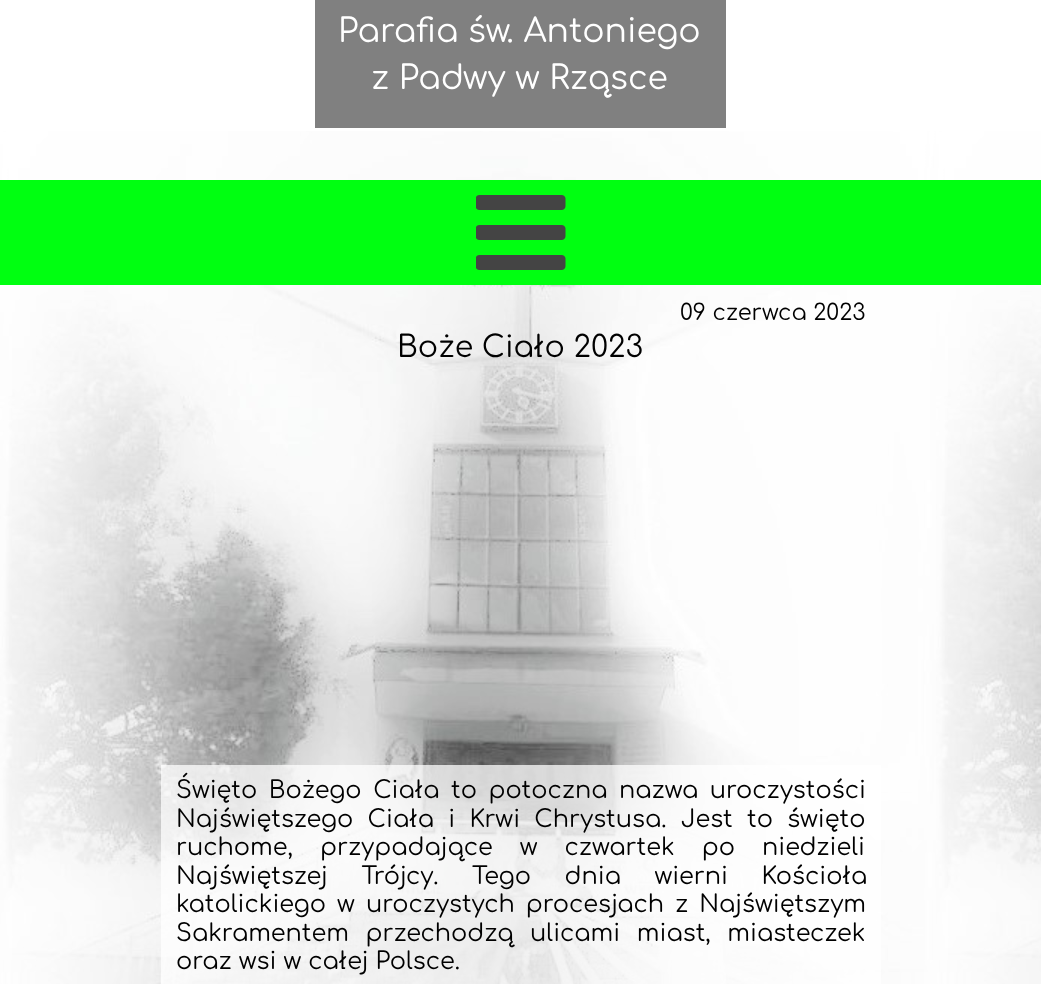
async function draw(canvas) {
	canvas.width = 1041;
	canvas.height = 984;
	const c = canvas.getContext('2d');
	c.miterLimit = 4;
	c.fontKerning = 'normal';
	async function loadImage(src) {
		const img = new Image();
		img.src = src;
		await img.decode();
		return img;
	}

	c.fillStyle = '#fff';
	c.fillRect(0, 0, 1041, 984);
	c.fillStyle = '#808080';
	c.fillRect(315, 0, 411, 128);
	c.font = '33px Comfortaa';
	c.fillStyle = '#fff';
	c.fillText('Parafia św. Antoniego', 338, 42);
	c.fillText('z Padwy w Rząsce', 371, 89);
	c.drawImage(await loadImage('img2.png'), 0, 131, 1041, 853);
	c.fillStyle = '#0f1';
	c.fillRect(0, 180, 1041, 105);
	c.drawImage(await loadImage('img1.png'), 476, 195, 90, 75);
	c.font = '22.5px Comfortaa';
	c.fillStyle = '#000';
	c.fillText('09 czerwca 2023', 680, 320);
	c.font = '30px Comfortaa';
	c.fillText('Boże Ciało 2023', 397, 357);
	c.fillStyle = '#ffffffbd';
	c.fillRect(161, 765, 720, 219);
	c.wordSpacing = '4.5px';
	c.font = '24px Comfortaa';
	c.fillStyle = '#000';
	c.fillText('Święto Bożego Ciała to potoczna nazwa uroczystości', 176, 798);
	c.wordSpacing = '7.25px';
	c.fillText('Najświętszego Ciała i Krwi Chrystusa. Jest to święto', 176, 827);
	c.wordSpacing = '20px';
	c.fillText('ruchome, przypadające w czwartek po niedzieli', 176, 855);
	c.wordSpacing = '26.5px';
	c.fillText('Najświętszej Trójcy. Tego dnia wierni Kościoła', 176, 884);
	c.wordSpacing = '4px';
	c.fillText('katolickiego w uroczystych procesjach z Najświętszym', 176, 912);
	c.wordSpacing = '9.5px';
	c.fillText('Sakramentem przechodzą ulicami miast, miasteczek', 176, 941);
	c.wordSpacing = '0px';
	c.fillText('oraz wsi w całej Polsce.', 176, 969);
}

draw(document.querySelector('canvas'));
